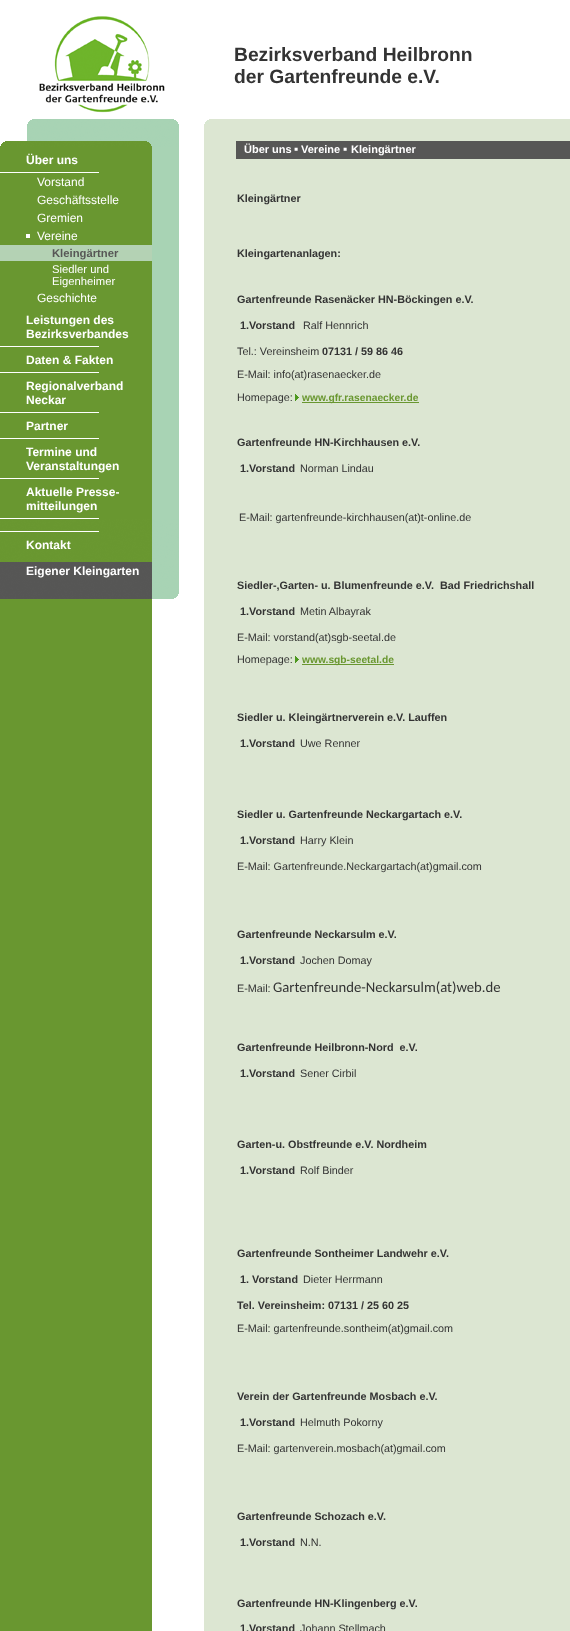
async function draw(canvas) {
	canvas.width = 570;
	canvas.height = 1631;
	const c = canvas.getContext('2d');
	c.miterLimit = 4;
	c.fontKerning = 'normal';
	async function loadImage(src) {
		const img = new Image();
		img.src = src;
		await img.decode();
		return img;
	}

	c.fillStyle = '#fff';
	c.fillRect(0, 0, 570, 1631);
	c.drawImage(await loadImage('img1.png'), 39, 16, 126, 97);
	c.font = 'bold 19.25px Liberation Sans';
	c.fillStyle = '#333';
	c.fillText('Bezirksverband Heilbronn', 234, 61);
	c.fillText('der Gartenfreunde e.V.', 234, 83);
	c.fillStyle = '#699730';
	c.fillRect(0, 147, 152, 1484);
	c.drawImage(await loadImage('img2.png'), 0, 119, 179, 28);
	c.fillStyle = '#a8d3b4';
	c.fillRect(152, 147, 27, 372);
	c.fillStyle = '#fff';
	c.fillRect(0, 172, 99, 1);
	c.font = 'bold 12px Liberation Sans';
	c.fillText('Über uns', 26, 164);
	c.font = '12px Liberation Sans';
	for (const [text, x, y] of [
		['Vorstand', 37, 186],
		['Geschäftsstelle', 37, 204],
		['Gremien', 37, 222],
	]) {
		c.fillText(text, x, y);
	}
	c.fillRect(26, 234, 4, 4);
	c.fillText('Vereine', 37, 240);
	c.fillStyle = '#b4d2b4';
	c.fillRect(0, 245, 152, 16);
	c.font = 'bold 11.25px Liberation Sans';
	c.fillStyle = '#575756';
	c.fillText('Kleingärtner', 52, 257);
	c.font = '11.25px Liberation Sans';
	c.fillStyle = '#fff';
	c.fillText('Siedler und', 52, 273);
	c.fillText('Eigenheimer', 52, 285);
	c.font = '12px Liberation Sans';
	c.fillText('Geschichte', 37, 302);
	c.fillRect(0, 346, 99, 1);
	c.font = 'bold 12px Liberation Sans';
	c.fillText('Leistungen des', 26, 324);
	c.fillText('Bezirksverbandes', 26, 338);
	c.fillRect(0, 372, 99, 1);
	c.fillText('Daten & Fakten', 26, 364);
	c.fillRect(0, 412, 99, 1);
	c.fillText('Regionalverband', 26, 390);
	c.fillText('Neckar', 26, 404);
	c.fillRect(0, 438, 99, 1);
	c.fillText('Partner', 26, 430);
	c.fillRect(0, 478, 99, 1);
	c.fillText('Termine und', 26, 456);
	c.fillText('Veranstaltungen', 26, 470);
	c.fillRect(0, 518, 99, 1);
	c.fillText('Aktuelle Presse-', 26, 496);
	c.fillText('mitteilungen', 26, 510);
	c.drawImage(await loadImage('img3.png'), 0, 519, 179, 80);
	c.fillRect(0, 531, 99, 1);
	c.fillText('Kontakt', 26, 549);
	c.fillText('Eigener Kleingarten', 26, 575);
	c.fillStyle = '#dce6d2';
	c.fillRect(204, 119, 366, 1512);
	c.drawImage(await loadImage('img4.png'), 204, 119, 5, 5);
	c.fillStyle = '#575756';
	c.fillRect(236, 141, 334, 18);
	c.font = 'bold 11px Liberation Sans';
	c.fillStyle = '#fff';
	c.fillText('Über uns', 244, 153);
	c.font = '12px Liberation Sans';
	c.fillText('▪', 294, 153);
	c.font = 'bold 11px Liberation Sans';
	c.fillText('Vereine', 301, 153);
	c.font = '12px Liberation Sans';
	c.fillText('▪', 343, 153);
	c.font = 'bold 11px Liberation Sans';
	c.fillText('Kleingärtner', 351, 153);
	c.font = 'bold 10.8px Liberation Sans';
	c.fillStyle = '#333';
	for (const [text, x, y] of [
		['Kleingärtner', 237, 202],
		['Kleingartenanlagen:', 237, 257],
		['Gartenfreunde Rasenäcker HN-Böckingen e.V.', 237, 303],
		['1.Vorstand', 240, 329],
	]) {
		c.fillText(text, x, y);
	}
	c.font = '10.8px Liberation Sans';
	c.fillText('Ralf Hennrich', 303, 329);
	c.fillText('Tel.: Vereinsheim', 237, 355);
	c.font = 'bold 10.8px Liberation Sans';
	c.fillText('07131 / 59 86 46', 322, 355);
	c.font = '10.8px Liberation Sans';
	c.fillText('E-Mail: info(at)rasenaecker.de', 237, 378);
	c.fillText('Homepage:', 237, 401);
	c.drawImage(await loadImage('img5.png'), 295, 394, 4, 7);
	c.fillStyle = '#699730';
	c.fillRect(302, 402, 117, 1);
	c.font = 'bold 10.25px Liberation Sans';
	c.fillText('www.gfr.rasenaecker.de', 302, 401);
	c.font = 'bold 10.8px Liberation Sans';
	c.fillStyle = '#333';
	c.fillText('Gartenfreunde HN-Kirchhausen e.V.', 237, 446);
	c.fillText('1.Vorstand', 240, 472);
	c.font = '10.8px Liberation Sans';
	c.fillText('Norman Lindau', 300, 472);
	c.fillText('E-Mail: gartenfreunde-kirchhausen(at)t-online.de', 239, 521);
	c.font = 'bold 10.8px Liberation Sans';
	c.fillText('Siedler-,Garten- u. Blumenfreunde e.V.  Bad Friedrichshall', 237, 589);
	c.fillText('1.Vorstand', 240, 615);
	c.font = '10.8px Liberation Sans';
	for (const [text, x, y] of [
		['Metin Albayrak', 300, 615],
		['E-Mail: vorstand(at)sgb-seetal.de', 237, 641],
		['Homepage:', 237, 663],
	]) {
		c.fillText(text, x, y);
	}
	c.drawImage(await loadImage('img5.png'), 295, 656, 4, 7);
	c.fillStyle = '#699730';
	c.fillRect(302, 664, 92, 1);
	c.font = 'bold 10.25px Liberation Sans';
	c.fillText('www.sgb-seetal.de', 302, 663);
	c.font = 'bold 10.8px Liberation Sans';
	c.fillStyle = '#333';
	c.fillText('Siedler u. Kleingärtnerverein e.V. Lauffen', 237, 721);
	c.fillText('1.Vorstand', 240, 747);
	c.font = '10.8px Liberation Sans';
	c.fillText('Uwe Renner', 300, 747);
	c.font = 'bold 10.8px Liberation Sans';
	c.fillText('Siedler u. Gartenfreunde Neckargartach e.V.', 237, 818);
	c.fillText('1.Vorstand', 240, 844);
	c.font = '10.8px Liberation Sans';
	c.fillText('Harry Klein', 300, 844);
	c.fillText('E-Mail: Gartenfreunde.Neckargartach(at)gmail.com', 237, 870);
	c.font = 'bold 10.8px Liberation Sans';
	c.fillText('Gartenfreunde Neckarsulm e.V.', 237, 938);
	c.fillText('1.Vorstand', 240, 964);
	c.font = '10.8px Liberation Sans';
	c.fillText('Jochen Domay', 300, 964);
	c.fillText('E-Mail:', 237, 992);
	c.font = '14.7px Carlito';
	c.fillText('Gartenfreunde-Neckarsulm(at)web.de', 273, 992);
	c.font = 'bold 10.8px Liberation Sans';
	c.fillText('Gartenfreunde Heilbronn-Nord  e.V.', 237, 1051);
	c.fillText('1.Vorstand', 240, 1077);
	c.font = '10.8px Liberation Sans';
	c.fillText('Sener Cirbil', 300, 1077);
	c.font = 'bold 10.8px Liberation Sans';
	c.fillText('Garten-u. Obstfreunde e.V. Nordheim', 237, 1148);
	c.fillText('1.Vorstand', 240, 1174);
	c.font = '10.8px Liberation Sans';
	c.fillText('Rolf Binder', 300, 1174);
	c.font = 'bold 10.8px Liberation Sans';
	c.fillText('Gartenfreunde Sontheimer Landwehr e.V.', 237, 1257);
	c.fillText('1. Vorstand', 240, 1283);
	c.font = '10.8px Liberation Sans';
	c.fillText('Dieter Herrmann', 303, 1283);
	c.font = 'bold 10.8px Liberation Sans';
	c.fillText('Tel. Vereinsheim: 07131 / 25 60 25', 237, 1309);
	c.font = '10.8px Liberation Sans';
	c.fillText('E-Mail: gartenfreunde.sontheim(at)gmail.com', 237, 1332);
	c.font = 'bold 10.8px Liberation Sans';
	c.fillText('Verein der Gartenfreunde Mosbach e.V.', 237, 1400);
	c.fillText('1.Vorstand', 240, 1426);
	c.font = '10.8px Liberation Sans';
	c.fillText('Helmuth Pokorny', 300, 1426);
	c.fillText('E-Mail: gartenverein.mosbach(at)gmail.com', 237, 1452);
	c.font = 'bold 10.8px Liberation Sans';
	c.fillText('Gartenfreunde Schozach e.V.', 237, 1520);
	c.fillText('1.Vorstand', 240, 1546);
	c.font = '10.8px Liberation Sans';
	c.fillText('N.N.', 300, 1546);
	c.font = 'bold 10.8px Liberation Sans';
	c.fillText('Gartenfreunde HN-Klingenberg e.V.', 237, 1607);
	c.fillText('1.Vorstand', 240, 1632);
	c.font = '10.8px Liberation Sans';
	c.fillText('Johann Stellmach', 300, 1632);
}

draw(document.querySelector('canvas'));
